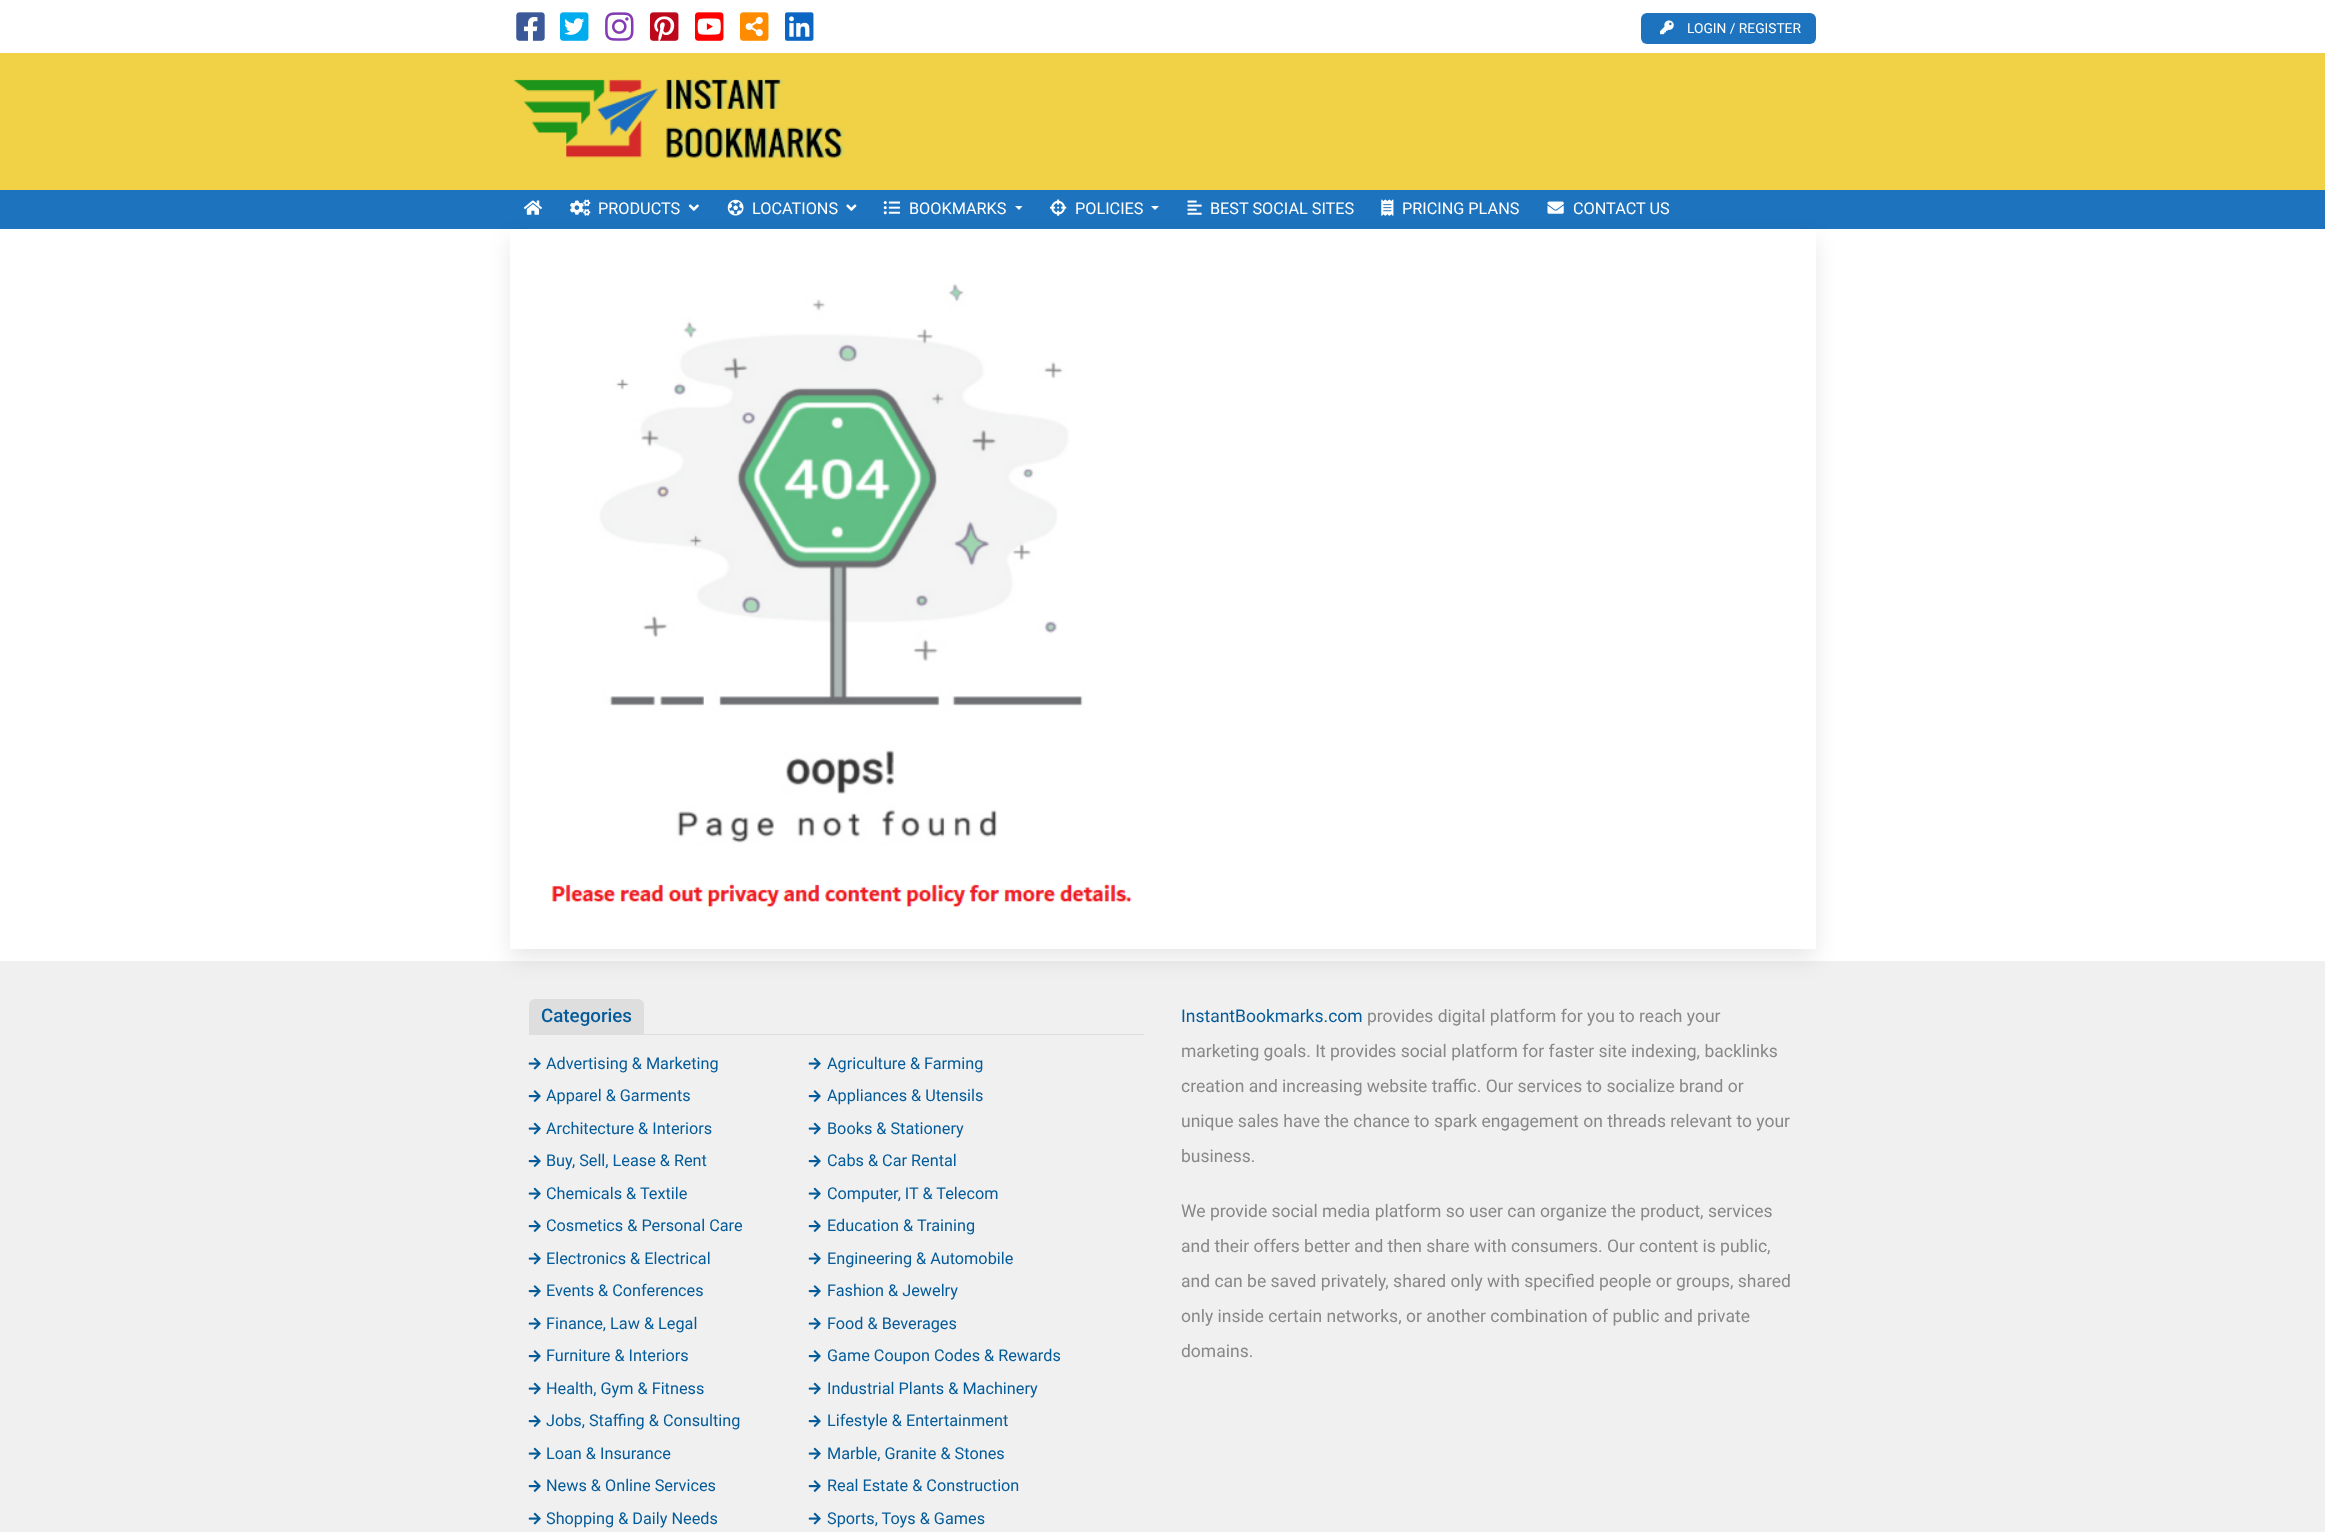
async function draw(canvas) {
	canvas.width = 2325;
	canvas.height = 1532;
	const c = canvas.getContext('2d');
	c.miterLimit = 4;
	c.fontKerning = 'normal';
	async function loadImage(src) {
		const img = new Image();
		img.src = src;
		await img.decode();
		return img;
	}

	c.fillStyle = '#fff';
	c.fillRect(0, 0, 2325, 1532);
	c.drawImage(await loadImage('img1.png'), 516, 12, 29, 29);
	c.drawImage(await loadImage('img2.png'), 560, 12, 29, 29);
	c.drawImage(await loadImage('img3.png'), 605, 12, 29, 29);
	c.drawImage(await loadImage('img4.png'), 650, 12, 29, 29);
	c.drawImage(await loadImage('img5.png'), 695, 12, 29, 29);
	c.drawImage(await loadImage('img6.png'), 740, 12, 29, 29);
	c.drawImage(await loadImage('img7.png'), 785, 12, 29, 29);
	c.fillStyle = '#1e73be';
	c.beginPath();
	c.roundRect(1641, 13, 175, 31, 6);
	c.fill();
	c.drawImage(await loadImage('img8.png'), 1660, 20, 14, 15);
	c.font = '13.75px Roboto';
	c.fillStyle = '#fff';
	c.fillText('LOGIN / REGISTER', 1687, 33);
	c.fillStyle = '#f1d145';
	c.fillRect(0, 53, 2325, 137);
	c.drawImage(await loadImage('img9.png'), 513, 79, 332, 80);
	c.fillStyle = '#1e73be';
	c.fillRect(0, 190, 2325, 39);
	c.fillStyle = '#f0f0f0';
	c.fillRect(0, 961, 2325, 571);
	c.fillStyle = '#00000017';
	c.filter = 'blur(11px)';
	c.beginPath();
	c.rect(510, 239, 1306, 720);
	c.fill();
	c.filter = 'none';
	c.fillStyle = '#1e73be';
	c.fillRect(525, 228, 1276, 1);
	c.drawImage(await loadImage('img10.png'), 523, 200, 19, 15);
	c.drawImage(await loadImage('img11.png'), 570, 199, 21, 17);
	c.font = '16.25px Roboto';
	c.fillStyle = '#fff';
	c.fillText('PRODUCTS', 598, 214);
	c.drawImage(await loadImage('img12.png'), 688, 204, 11, 7);
	c.drawImage(await loadImage('img13.png'), 727, 199, 17, 17);
	c.fillText('LOCATIONS', 752, 214);
	c.drawImage(await loadImage('img14.png'), 846, 204, 11, 7);
	c.drawImage(await loadImage('img15.png'), 883, 201, 17, 14);
	c.fillText('BOOKMARKS', 909, 214);
	c.beginPath();
	c.moveTo(1015, 206);
	c.lineTo(1022.5, 206);
	c.lineTo(1019, 210);
	c.closePath();
	c.fill();
	c.drawImage(await loadImage('img16.png'), 1050, 199, 17, 17);
	c.fillText('POLICIES', 1075, 214);
	c.beginPath();
	c.moveTo(1151, 206);
	c.lineTo(1159, 206);
	c.lineTo(1155, 210);
	c.closePath();
	c.fill();
	c.drawImage(await loadImage('img17.png'), 1187, 200, 15, 15);
	c.fillText('BEST SOCIAL SITES', 1210, 214);
	c.drawImage(await loadImage('img18.png'), 1381, 199, 13, 17);
	c.fillText('PRICING PLANS', 1402, 214);
	c.drawImage(await loadImage('img19.png'), 1547, 201, 17, 13);
	c.fillText('CONTACT US', 1573, 214);
	c.fillRect(510, 229, 1306, 720);
	c.drawImage(await loadImage('img20.png'), 552, 283, 580, 624);
	c.fillStyle = '#dedede';
	c.fillRect(529, 1034, 615, 1);
	c.beginPath();
	c.roundRect(529, 999, 115, 35, [6, 6, 0, 0]);
	c.fill();
	c.font = '500 18.75px Roboto';
	c.fillStyle = '#045b99';
	c.fillText('Categories', 541, 1022);
	c.drawImage(await loadImage('img21.png'), 528, 1057, 13, 13);
	c.font = '16.25px Roboto';
	c.fillText('Advertising & Marketing', 546, 1069);
	c.drawImage(await loadImage('img21.png'), 808, 1057, 13, 13);
	c.fillText('Agriculture & Farming', 827, 1069);
	c.drawImage(await loadImage('img22.png'), 528, 1090, 13, 12);
	c.fillText('Apparel & Garments', 546, 1101);
	c.drawImage(await loadImage('img22.png'), 808, 1090, 13, 12);
	c.fillText('Appliances & Utensils', 827, 1101);
	c.drawImage(await loadImage('img21.png'), 528, 1122, 13, 13);
	c.fillText('Architecture & Interiors', 546, 1134);
	c.drawImage(await loadImage('img21.png'), 808, 1122, 13, 13);
	c.fillText('Books & Stationery', 827, 1134);
	c.drawImage(await loadImage('img22.png'), 528, 1155, 13, 12);
	c.fillText('Buy, Sell, Lease & Rent', 546, 1166);
	c.drawImage(await loadImage('img22.png'), 808, 1155, 13, 12);
	c.fillText('Cabs & Car Rental', 827, 1166);
	c.drawImage(await loadImage('img21.png'), 528, 1187, 13, 13);
	c.fillText('Chemicals & Textile', 546, 1199);
	c.drawImage(await loadImage('img21.png'), 808, 1187, 13, 13);
	c.fillText('Computer, IT & Telecom', 827, 1199);
	c.drawImage(await loadImage('img22.png'), 528, 1220, 13, 12);
	c.fillText('Cosmetics & Personal Care', 546, 1231);
	c.drawImage(await loadImage('img22.png'), 808, 1220, 13, 12);
	c.fillText('Education & Training', 827, 1231);
	c.drawImage(await loadImage('img21.png'), 528, 1252, 13, 13);
	c.fillText('Electronics & Electrical', 546, 1264);
	c.drawImage(await loadImage('img21.png'), 808, 1252, 13, 13);
	c.fillText('Engineering & Automobile', 827, 1264);
	c.drawImage(await loadImage('img22.png'), 528, 1285, 13, 12);
	c.fillText('Events & Conferences', 546, 1296);
	c.drawImage(await loadImage('img22.png'), 808, 1285, 13, 12);
	c.fillText('Fashion & Jewelry', 827, 1296);
	c.drawImage(await loadImage('img21.png'), 528, 1317, 13, 13);
	c.fillText('Finance, Law & Legal', 546, 1329);
	c.drawImage(await loadImage('img21.png'), 808, 1317, 13, 13);
	c.fillText('Food & Beverages', 827, 1329);
	c.drawImage(await loadImage('img22.png'), 528, 1350, 13, 12);
	c.fillText('Furniture & Interiors', 546, 1361);
	c.drawImage(await loadImage('img22.png'), 808, 1350, 13, 12);
	c.fillText('Game Coupon Codes & Rewards', 827, 1361);
	c.drawImage(await loadImage('img21.png'), 528, 1382, 13, 13);
	c.fillText('Health, Gym & Fitness', 546, 1394);
	c.drawImage(await loadImage('img21.png'), 808, 1382, 13, 13);
	c.fillText('Industrial Plants & Machinery', 827, 1394);
	c.drawImage(await loadImage('img22.png'), 528, 1415, 13, 12);
	c.fillText('Jobs, Staffing & Consulting', 546, 1426);
	c.drawImage(await loadImage('img22.png'), 808, 1415, 13, 12);
	c.fillText('Lifestyle & Entertainment', 827, 1426);
	c.drawImage(await loadImage('img21.png'), 528, 1447, 13, 13);
	c.fillText('Loan & Insurance', 546, 1459);
	c.drawImage(await loadImage('img21.png'), 808, 1447, 13, 13);
	c.fillText('Marble, Granite & Stones', 827, 1459);
	c.drawImage(await loadImage('img22.png'), 528, 1480, 13, 12);
	c.fillText('News & Online Services', 546, 1491);
	c.drawImage(await loadImage('img22.png'), 808, 1480, 13, 12);
	c.fillText('Real Estate & Construction', 827, 1491);
	c.drawImage(await loadImage('img21.png'), 528, 1512, 13, 13);
	c.fillText('Shopping & Daily Needs', 546, 1524);
	c.drawImage(await loadImage('img21.png'), 808, 1512, 13, 13);
	c.fillText('Sports, Toys & Games', 827, 1524);
	c.font = '17.5px Roboto';
	c.fillText('InstantBookmarks.com', 1181, 1022);
	c.fillStyle = '#888';
	for (const [text, x, y] of [
		['provides digital platform for you to reach your', 1367, 1022],
		['marketing goals. It provides social platform for faster site indexing, backlinks', 1181, 1057],
		['creation and increasing website traffic. Our services to socialize brand or', 1181, 1092],
		['unique sales have the chance to spark engagement on threads relevant to your', 1181, 1127],
		['business.', 1181, 1162],
		['We provide social media platform so user can organize the product, services', 1181, 1217],
		['and their offers better and then share with consumers. Our content is public,', 1181, 1252],
		['and can be saved privately, shared only with specified people or groups, shared', 1181, 1287],
		['only inside certain networks, or another combination of public and private', 1181, 1322],
		['domains.', 1181, 1357],
	]) {
		c.fillText(text, x, y);
	}
}

draw(document.querySelector('canvas'));
